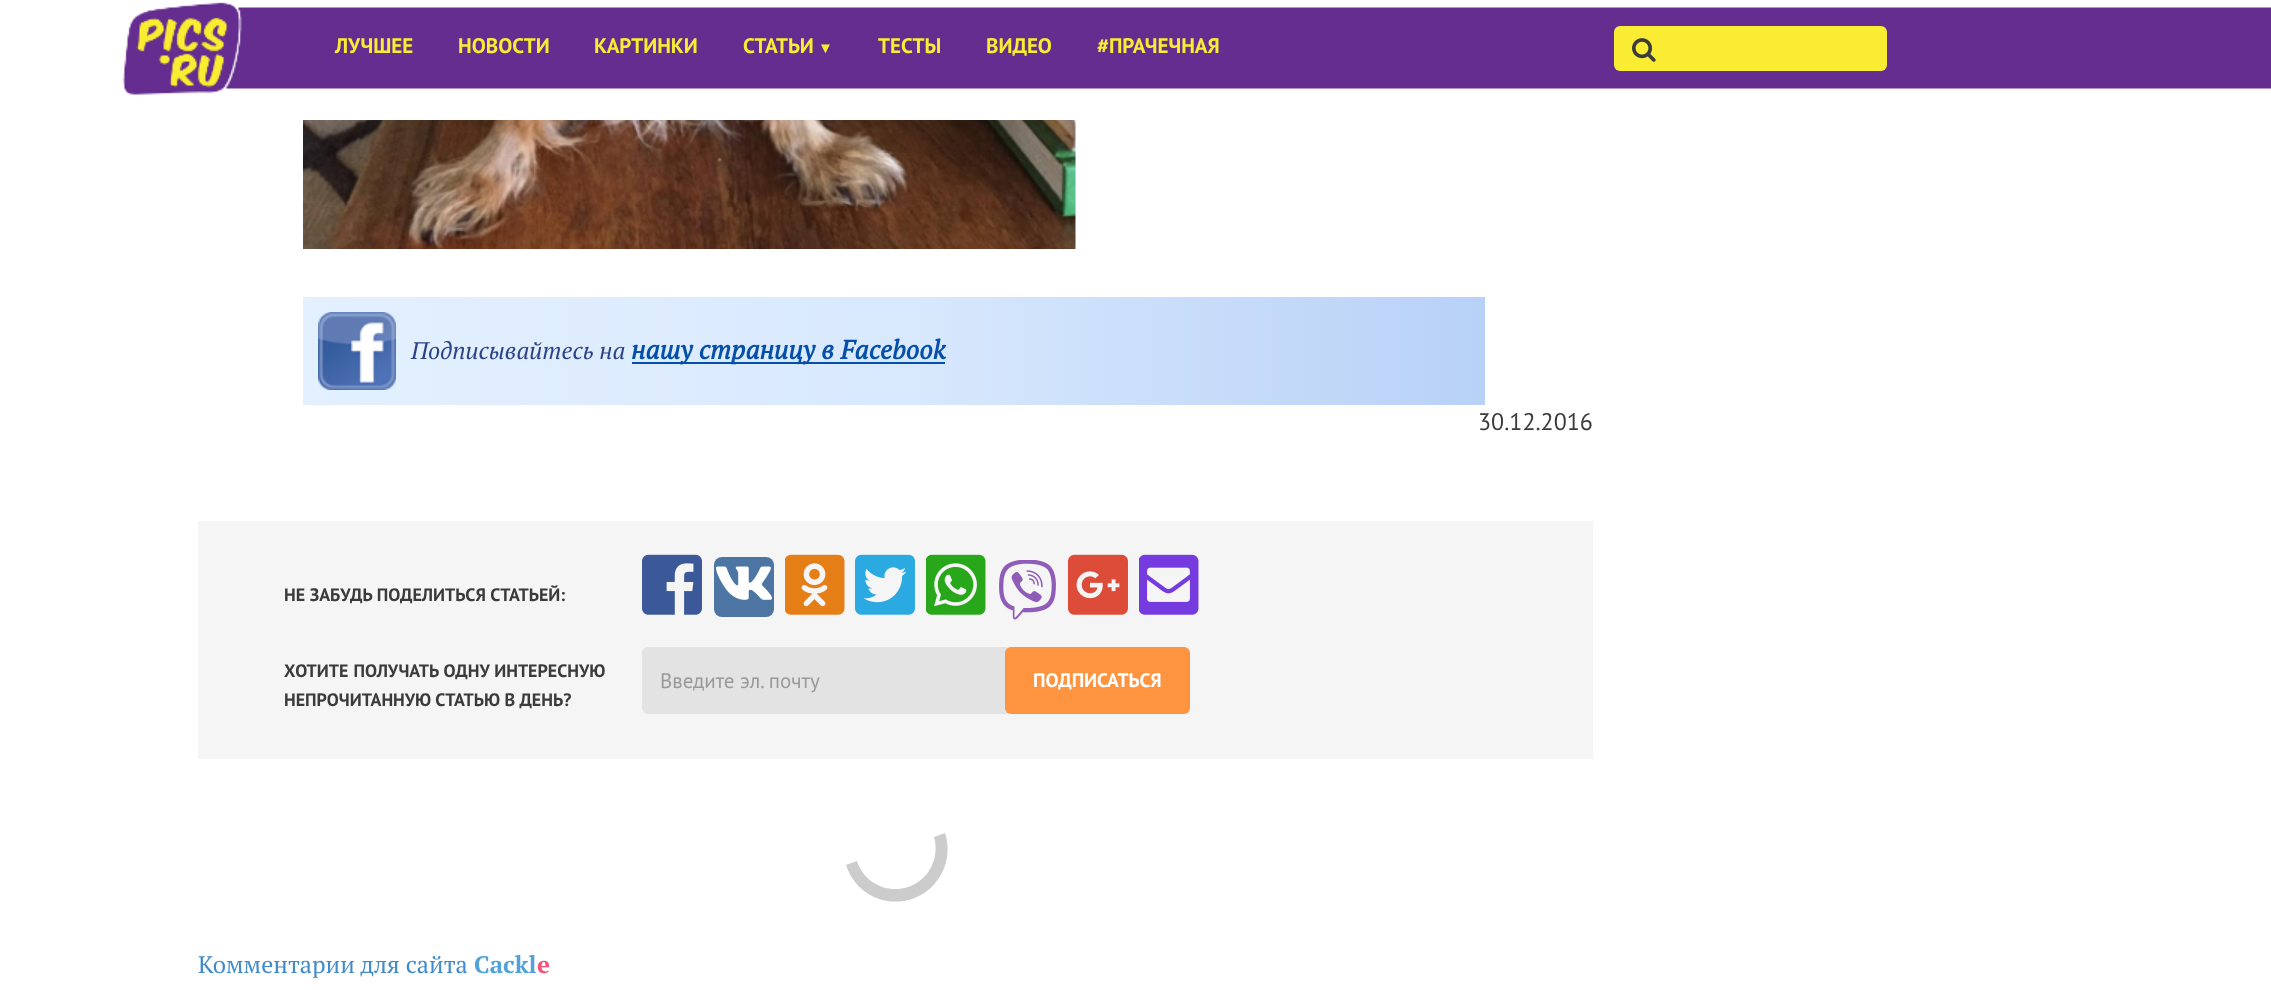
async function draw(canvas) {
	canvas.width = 2271;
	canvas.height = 990;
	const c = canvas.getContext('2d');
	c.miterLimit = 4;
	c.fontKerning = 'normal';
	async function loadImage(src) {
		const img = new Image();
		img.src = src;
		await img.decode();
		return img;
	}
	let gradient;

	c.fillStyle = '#fff';
	c.fillRect(0, 0, 2271, 990);
	c.drawImage(await loadImage('img1.png'), 122, 2, 2149, 93);
	c.font = 'bold 21px PT Sans';
	c.fillStyle = '#f9ec32';
	for (const [text, x, y] of [
		['ЛУЧШЕЕ', 335, 53],
		['НОВОСТИ', 458, 53],
		['КАРТИНКИ', 594, 53],
		['СТАТЬИ', 743, 53],
	]) {
		c.fillText(text, x, y);
	}
	c.font = 'bold 15px Liberation Sans';
	c.fillText('▼', 818, 53);
	c.font = 'bold 21px PT Sans';
	for (const [text, x, y] of [
		['ТЕСТЫ', 878, 53],
		['ВИДЕО', 986, 53],
		['#ПРАЧЕЧНАЯ', 1097, 53],
	]) {
		c.fillText(text, x, y);
	}
	c.beginPath();
	c.roundRect(1614, 26, 273, 45, 6);
	c.fill();
	c.drawImage(await loadImage('img2.png'), 1632, 38, 24, 24);
	c.drawImage(await loadImage('img3.png'), 303, 120, 773, 129);
	gradient = c.createLinearGradient(303, 351, 1485, 351);
	gradient.addColorStop(0, '#e3f0ff');
	gradient.addColorStop(0.5, '#d9e9fd');
	gradient.addColorStop(1, '#b8d1f7');
	c.fillStyle = gradient;
	c.fillRect(303, 297, 1182, 108);
	c.drawImage(await loadImage('img4.png'), 318, 312, 78, 78);
	c.font = 'italic 24px PT Serif';
	c.fillStyle = '#2b4386';
	c.fillText('Подписывайтесь на', 411, 359);
	c.fillStyle = '#044faa';
	c.fillRect(632, 362, 313, 2);
	c.font = 'italic bold 26.4px PT Serif';
	c.fillText('нашу страницу в Facebook', 631, 359);
	c.font = '24px PT Sans';
	c.fillStyle = '#3b3b3b';
	c.fillText('30.12.2016', 1478, 430);
	c.fillStyle = '#f5f5f5';
	c.fillRect(198, 521, 1395, 238);
	c.font = 'bold 18px PT Sans';
	c.fillStyle = '#3b3b3b';
	c.fillText('НЕ ЗАБУДЬ ПОДЕЛИТЬСЯ СТАТЬЕЙ:', 284, 601);
	c.drawImage(await loadImage('img5.png'), 642, 554, 60, 61);
	c.fillStyle = '#4d75a3';
	c.beginPath();
	c.roundRect(714, 557, 60, 60, 8);
	c.fill();
	c.drawImage(await loadImage('img6.png'), 715, 566, 57, 34);
	c.drawImage(await loadImage('img7.png'), 785, 554, 60, 61);
	c.drawImage(await loadImage('img8.png'), 855, 554, 60, 61);
	c.drawImage(await loadImage('img9.png'), 926, 554, 60, 61);
	c.drawImage(await loadImage('img10.png'), 999, 560, 57, 60);
	c.drawImage(await loadImage('img11.png'), 1068, 554, 60, 61);
	c.drawImage(await loadImage('img12.png'), 1139, 554, 60, 61);
	c.wordSpacing = '0.5px';
	c.fillStyle = '#3b3b3b';
	c.fillText('ХОТИТЕ ПОЛУЧАТЬ ОДНУ ИНТЕРЕСНУЮ', 284, 677);
	c.wordSpacing = '0px';
	c.fillText('НЕПРОЧИТАННУЮ СТАТЬЮ В ДЕНЬ?', 284, 706);
	c.fillStyle = '#e3e3e3';
	c.beginPath();
	c.roundRect(642, 647, 365, 67, [6, 0, 0, 6]);
	c.fill();
	c.font = '21px PT Sans';
	c.fillStyle = '#999';
	c.fillText('Введите эл. почту', 660, 688);
	c.fillStyle = '#fe9440';
	c.beginPath();
	c.roundRect(1005, 647, 185, 67, 6);
	c.fill();
	c.font = 'bold 19.5px PT Sans';
	c.fillStyle = '#fff';
	c.fillText('ПОДПИСАТЬСЯ', 1033, 687);
	c.fillStyle = '#ccc';
	c.beginPath();
	c.moveTo(846, 865);
	c.bezierCurveTo(855, 893, 884, 908, 912, 899);
	c.bezierCurveTo(939, 890, 954, 860, 945, 833);
	c.lineTo(934, 837);
	c.bezierCurveTo(940, 858, 929, 880, 908, 887);
	c.bezierCurveTo(887, 894, 864, 883, 857, 861);
	c.closePath();
	c.fill();
	c.font = '24px PT Serif';
	c.fillStyle = '#428bca';
	c.fillText('Комментарии для сайта', 198, 973);
	c.font = 'bold 24px PT Serif';
	c.fillStyle = '#4fa3da';
	c.fillText('Cackl', 474, 973);
	c.fillStyle = '#f65077';
	c.fillText('e', 537, 973);
}

draw(document.querySelector('canvas'));
